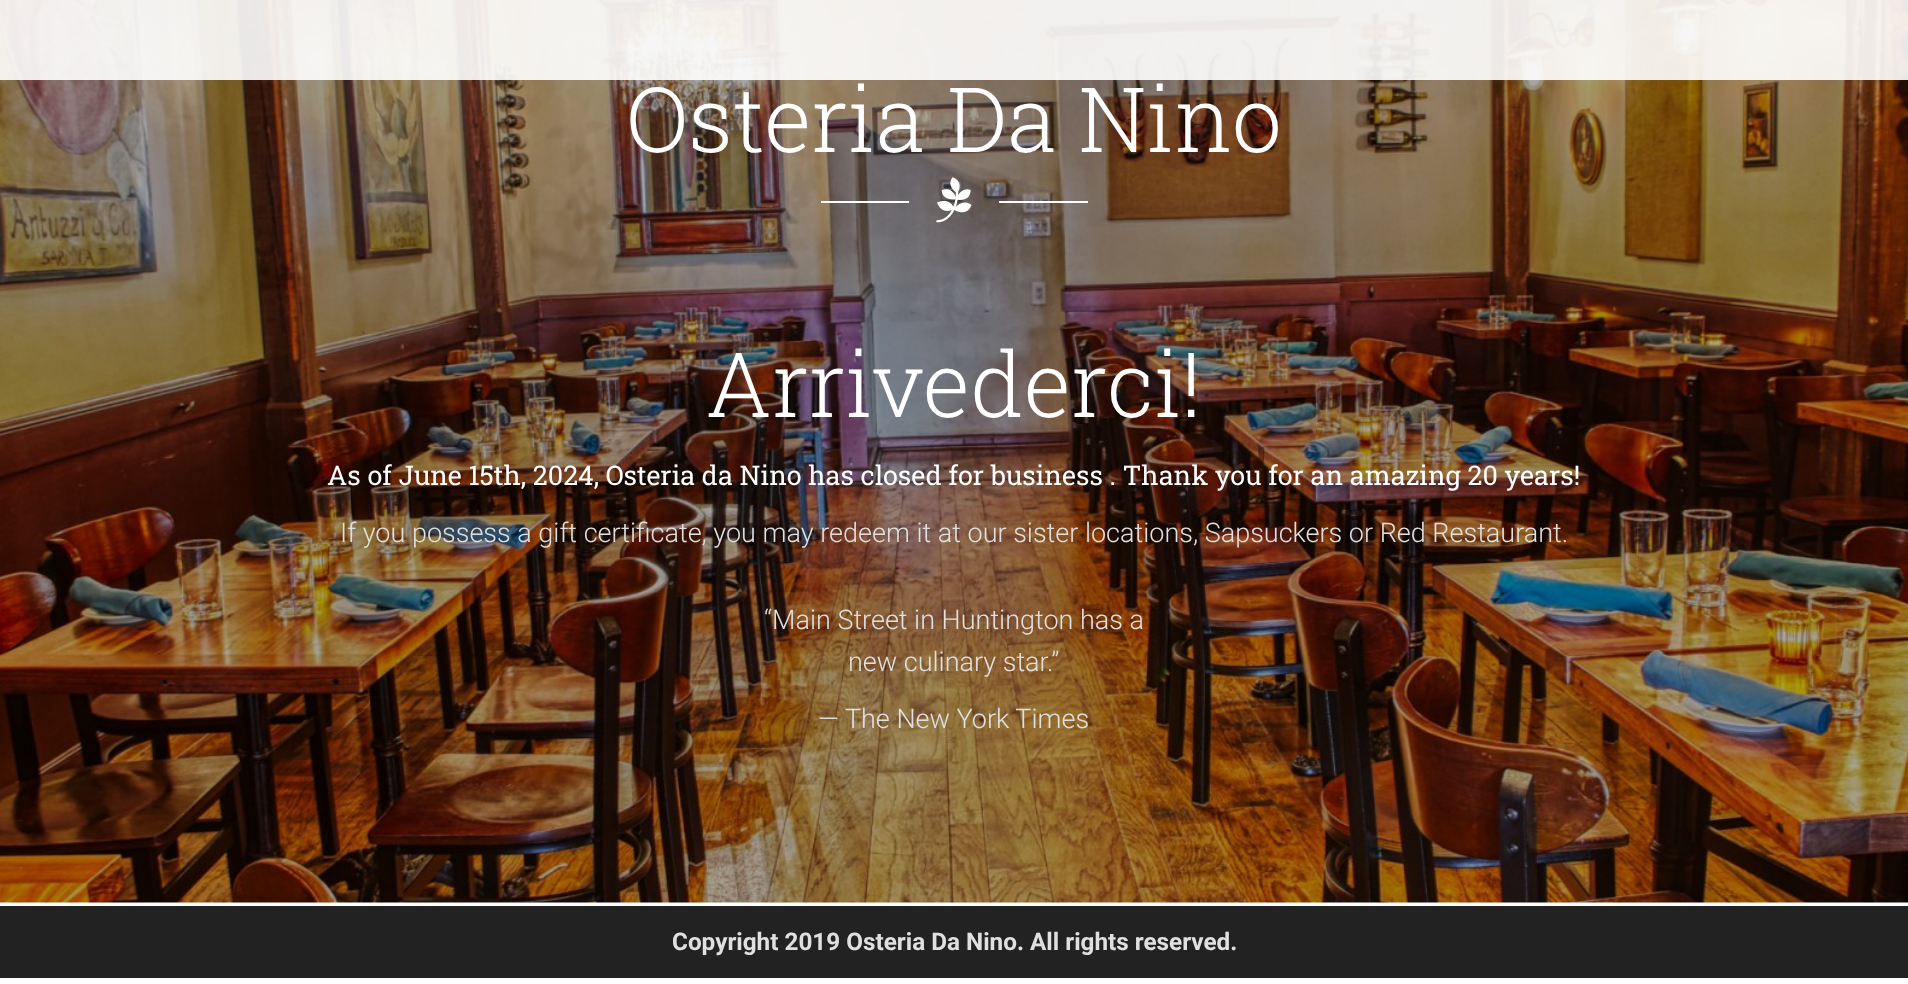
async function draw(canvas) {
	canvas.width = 1908;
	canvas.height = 984;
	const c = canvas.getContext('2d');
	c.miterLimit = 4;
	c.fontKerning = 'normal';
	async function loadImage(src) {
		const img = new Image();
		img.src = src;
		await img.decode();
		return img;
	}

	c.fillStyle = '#fff';
	c.fillRect(0, 0, 1908, 984);
	c.drawImage(await loadImage('img1.png'), 0, 0, 1908, 903);
	c.fillStyle = '#ffffffe6';
	c.fillRect(0, 0, 1908, 80);
	c.font = '300 90px Roboto Slab';
	c.fillStyle = '#fff';
	c.fillText('Osteria Da Nino', 626, 152);
	c.fillRect(821, 201, 88, 2);
	c.drawImage(await loadImage('img2.png'), 936, 177, 36, 46);
	c.fillRect(999, 201, 89, 2);
	c.fillText('Arrivederci!', 706, 417);
	c.font = '27px Roboto Slab';
	c.fillText('As of June 15th, 2024, Osteria da Nino has closed for business . Thank you for an amazing 20 years!', 327, 485);
	c.font = '300 27px Roboto';
	c.fillStyle = '#e0e0e0';
	for (const [text, x, y] of [
		['If you possess a gift certificate, you may redeem it at our sister locations, Sapsuckers or Red Restaurant.', 340, 542],
		['“Main Street in Huntington has a', 764, 629],
		['new culinary star.”', 848, 671],
		['— The New York Times', 818, 728],
	]) {
		c.fillText(text, x, y);
	}
	c.fillStyle = '#222';
	c.fillRect(0, 906, 1908, 72);
	c.font = 'bold 24.3px Roboto';
	c.fillStyle = '#e0e0e0';
	c.fillText('Copyright 2019 Osteria Da Nino. All rights reserved.', 672, 950);
}

draw(document.querySelector('canvas'));
